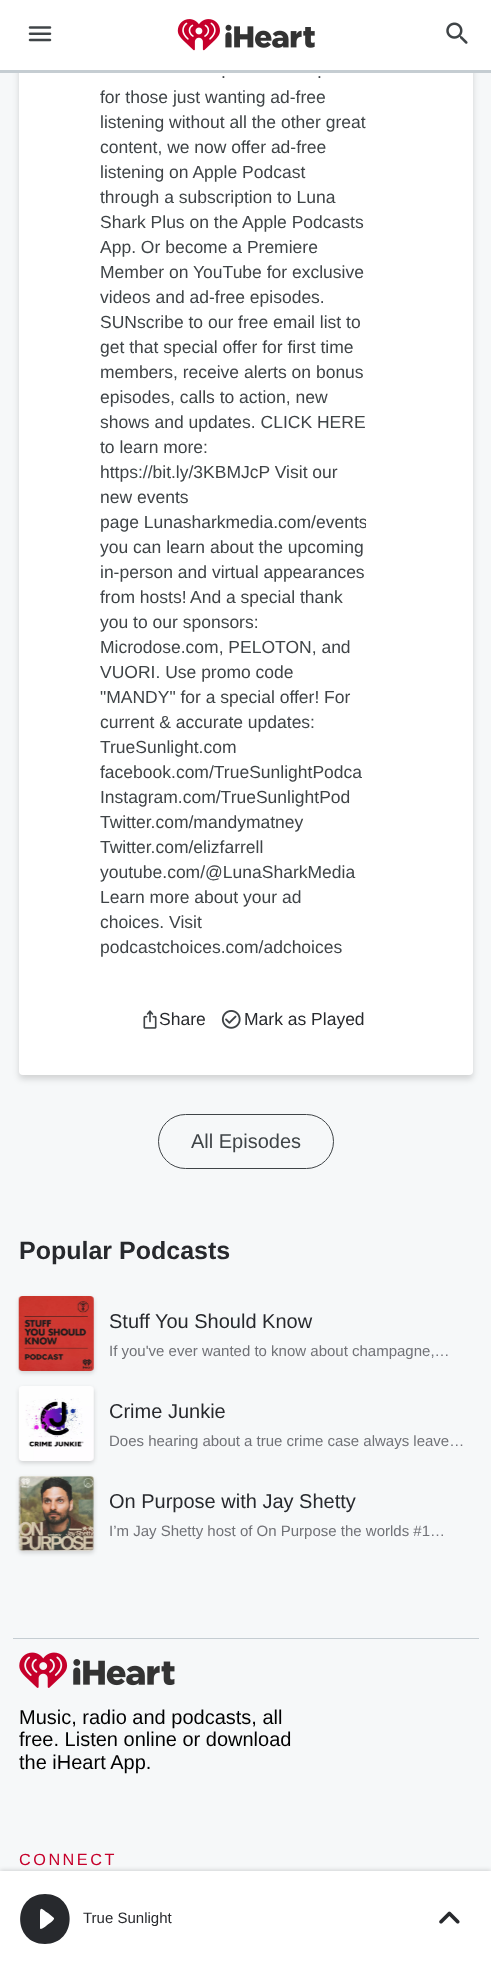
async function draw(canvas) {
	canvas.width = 491;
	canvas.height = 1964;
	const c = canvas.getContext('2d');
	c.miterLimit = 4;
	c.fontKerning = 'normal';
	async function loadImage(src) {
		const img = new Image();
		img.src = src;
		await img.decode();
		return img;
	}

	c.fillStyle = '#f6f8f9';
	c.fillRect(0, 0, 491, 1964);
	c.fillStyle = '#00000026';
	c.filter = 'blur(3px)';
	c.beginPath();
	c.roundRect(19, -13, 454, 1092, 4);
	c.fill();
	c.filter = 'none';
	c.fillStyle = '#fff';
	c.beginPath();
	c.roundRect(19, -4, 454, 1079, 4);
	c.fill();
	c.fillRect(0, 0, 491, 70);
	c.fillStyle = '#c5cdd2';
	c.fillRect(0, 70, 491, 3);
	c.drawImage(await loadImage('img1.png'), 28, 26, 24, 16);
	c.drawImage(await loadImage('img2.png'), 177, 19, 138, 32);
	c.drawImage(await loadImage('img3.png'), 446, 22, 22, 22);
	c.font = '17.5px Liberation Sans';
	c.fillStyle = '#3f4447';
	for (const [text, x, y] of [
		['.', 221, 78],
		['.', 317, 78],
		['for those just wanting ad-free', 100, 103],
		['listening without all the other great', 100, 128],
		['content, we now offer ad-free', 100, 153],
		['listening on Apple Podcast', 100, 178],
		['through a subscription to Luna', 100, 203],
		['Shark Plus on the Apple Podcasts', 100, 228],
		['App. Or become a Premiere', 100, 253],
		['Member on YouTube for exclusive', 100, 278],
		['videos and ad-free episodes.', 100, 303],
		['SUNscribe to our free email list to', 100, 328],
		['get that special offer for first time', 100, 353],
		['members, receive alerts on bonus', 100, 378],
		['episodes, calls to action, new', 100, 403],
		['shows and updates. CLICK HERE', 100, 428],
		['to learn more:', 100, 453],
		['https://bit.ly/3KBMJcP Visit our', 100, 478],
		['new events', 100, 503],
	]) {
		c.fillText(text, x, y);
	}
	c.save();
	c.beginPath();
	c.rect(100, 0, 266, 959);
	c.clip();
	c.fillText('page Lunasharkmedia.com/events', 100, 528);
	c.restore();
	for (const [text, x, y] of [
		['you can learn about the upcoming', 100, 553],
		['in-person and virtual appearances', 100, 578],
		['from hosts!', 100, 603],
		['And a special thank', 190, 603],
		['you to our sponsors:', 100, 628],
		['Microdose.com, PELOTON, and', 100, 653],
		['VUORI. Use promo code', 100, 678],
		['"MANDY" for a special offer! For', 100, 703],
		['current & accurate updates:', 100, 728],
		['TrueSunlight.com', 100, 753],
		['facebook.com/TrueSunlightPodca', 100, 778],
		['Instagram.com/TrueSunlightPod', 100, 803],
		['Twitter.com/mandymatney', 100, 828],
		['Twitter.com/elizfarrell', 100, 853],
		['youtube.com/@LunaSharkMedia', 100, 878],
		['Learn more about your ad', 100, 903],
		['choices. Visit', 100, 928],
		['podcastchoices.com/adchoices', 100, 953],
	]) {
		c.fillText(text, x, y);
	}
	c.drawImage(await loadImage('img4.png'), 143, 1010, 14, 19);
	c.fillStyle = '#27292d';
	c.fillText('Share', 159, 1025);
	c.drawImage(await loadImage('img5.png'), 221, 1010, 20, 19);
	c.fillText('Mark as Played', 244, 1025);
	c.beginPath();
	c.roundRect(158.5, 1114.5, 175, 54, 27);
	c.strokeStyle = '#3f4447';
	c.stroke();
	c.font = '20px Liberation Sans';
	c.fillStyle = '#3f4447';
	c.fillText('All Episodes', 191, 1148);
	c.font = 'bold 25px Liberation Sans';
	c.fillStyle = '#27292d';
	c.fillText('Popular Podcasts', 19, 1259);
	c.fillStyle = '#00000026';
	c.filter = 'blur(2px)';
	c.beginPath();
	c.roundRect(19, 1298, 75, 75, 4);
	c.fill();
	c.filter = 'none';
	c.drawImage(await loadImage('img6.png'), 18, 1296, 76, 75);
	c.font = '20px Liberation Sans';
	c.fillStyle = '#27292d';
	c.fillText('Stuff You Should Know', 109, 1328);
	c.font = '15px Liberation Sans';
	c.fillStyle = '#717277';
	c.fillText('If you\'ve ever wanted to know about champagne,…', 109, 1356);
	c.fillStyle = '#00000026';
	c.filter = 'blur(2px)';
	c.beginPath();
	c.roundRect(19, 1388, 75, 75, 4);
	c.fill();
	c.filter = 'none';
	c.drawImage(await loadImage('img7.png'), 18, 1386, 76, 75);
	c.font = '20px Liberation Sans';
	c.fillStyle = '#27292d';
	c.fillText('Crime Junkie', 109, 1418);
	c.font = '15px Liberation Sans';
	c.fillStyle = '#717277';
	c.fillText('Does hearing about a true crime case always leave…', 109, 1446);
	c.fillStyle = '#00000026';
	c.filter = 'blur(2px)';
	c.beginPath();
	c.roundRect(19, 1478, 75, 75, 4);
	c.fill();
	c.filter = 'none';
	c.drawImage(await loadImage('img8.png'), 18, 1476, 76, 75);
	c.font = '20px Liberation Sans';
	c.fillStyle = '#27292d';
	c.fillText('On Purpose with Jay Shetty', 109, 1508);
	c.font = '15px Liberation Sans';
	c.fillStyle = '#717277';
	c.fillText('I’m Jay Shetty host of On Purpose the worlds #1…', 109, 1536);
	c.fillStyle = '#c5cdd2';
	c.fillRect(13, 1638, 466, 1);
	c.drawImage(await loadImage('img9.png'), 19, 1652, 156, 36);
	c.font = '20px Liberation Sans';
	c.fillStyle = '#000';
	for (const [text, x, y] of [
		['Music, radio and podcasts, all', 19, 1724],
		['free. Listen online or download', 19, 1746],
		['the iHeart App.', 19, 1769],
	]) {
		c.fillText(text, x, y);
	}
	c.letterSpacing = '2.5px';
	c.font = '16.25px Liberation Sans';
	c.fillStyle = '#c6002b';
	c.fillText('CONNECT', 19, 1865);
	c.fillStyle = '#00000026';
	c.filter = 'blur(2px)';
	c.beginPath();
	c.rect(0, 1870, 491, 94);
	c.fill();
	c.filter = 'none';
	c.fillStyle = '#fff';
	c.fillRect(0, 1871, 491, 93);
	c.fillStyle = '#27292d';
	c.beginPath();
	c.moveTo(45, 1894);
	c.bezierCurveTo(12, 1894, 12, 1944, 45, 1944);
	c.bezierCurveTo(78, 1944, 78, 1894, 45, 1894);
	c.closePath();
	c.moveTo(40, 1928);
	c.lineTo(40, 1913);
	c.bezierCurveTo(40, 1905, 43, 1910, 48, 1913);
	c.lineTo(54, 1918);
	c.bezierCurveTo(55, 1920, 47, 1925, 46, 1926);
	c.bezierCurveTo(46, 1926, 40, 1931, 40, 1928);
	c.closePath();
	c.fill();
	c.letterSpacing = '0px';
	c.font = '15px Liberation Sans';
	c.fillText('True Sunlight', 83, 1923);
	c.drawImage(await loadImage('img10.png'), 439, 1911, 21, 13);
}

draw(document.querySelector('canvas'));
